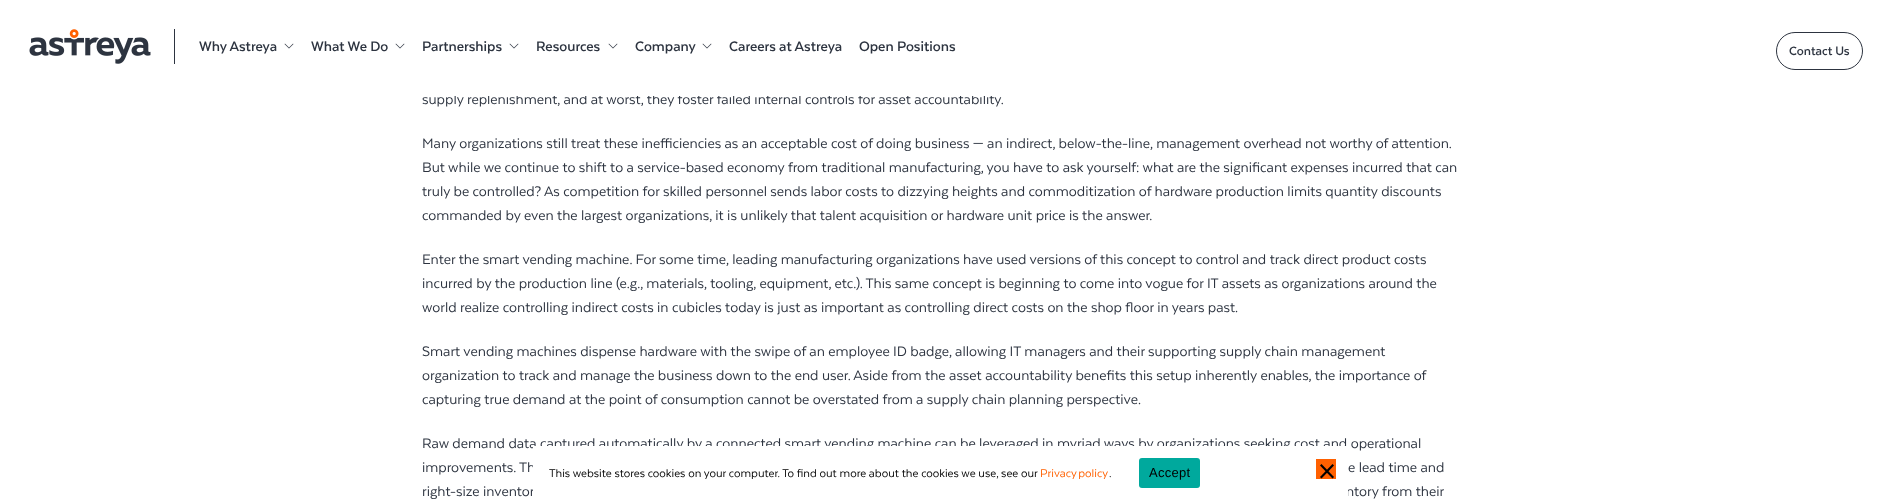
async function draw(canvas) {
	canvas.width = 1881;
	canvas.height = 502;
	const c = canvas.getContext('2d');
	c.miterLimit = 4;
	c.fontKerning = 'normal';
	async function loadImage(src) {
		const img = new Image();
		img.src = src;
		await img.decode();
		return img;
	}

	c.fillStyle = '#fff';
	c.fillRect(0, 0, 1881, 502);
	c.font = '16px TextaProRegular';
	c.fillStyle = '#2d3440';
	c.fillText('supply replenishment, and at worst, they foster failed internal controls for asset accountability.', 422, 104);
	c.fillStyle = '#fff';
	c.fillRect(454, 94, 538, 2);
	c.fillStyle = '#2d3440';
	c.fillRect(174, 29, 1, 35);
	c.drawImage(await loadImage('img1.png'), 29, 29, 122, 35);
	c.font = 'bold 16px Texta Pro';
	c.fillText('Why Astreya', 199, 51);
	c.drawImage(await loadImage('img2.png'), 284, 43, 10, 6);
	c.fillText('What We Do', 311, 51);
	c.drawImage(await loadImage('img2.png'), 395, 43, 10, 6);
	c.fillText('Partnerships', 422, 51);
	c.drawImage(await loadImage('img2.png'), 509, 43, 10, 6);
	c.fillText('Resources', 536, 51);
	c.drawImage(await loadImage('img2.png'), 608, 43, 10, 6);
	c.fillText('Company', 635, 51);
	c.drawImage(await loadImage('img2.png'), 702, 43, 10, 6);
	c.fillText('Careers at Astreya', 729, 51);
	c.fillText('Open Positions', 859, 51);
	c.beginPath();
	c.roundRect(1776.5, 32.5, 86, 37, 18.5);
	c.strokeStyle = '#2d3440';
	c.stroke();
	c.font = 'bold 14px Texta Pro';
	c.fillText('Contact Us', 1789, 55);
	c.font = '16px TextaProRegular';
	for (const [text, x, y] of [
		['Many organizations still treat these inefficiencies as an acceptable cost of doing business — an indirect, below-the-line, management overhead not worthy of attention.', 422, 148],
		['But while we continue to shift to a service-based economy from traditional manufacturing, you have to ask yourself: what are the significant expenses incurred that can', 422, 172],
		['truly be controlled? As competition for skilled personnel sends labor costs to dizzying heights and commoditization of hardware production limits quantity discounts', 422, 196],
		['commanded by even the largest organizations, it is unlikely that talent acquisition or hardware unit price is the answer.', 422, 220],
		['Enter the smart vending machine. For some time, leading manufacturing organizations have used versions of this concept to control and track direct product costs', 422, 264],
		['incurred by the production line (e.g., materials, tooling, equipment, etc.). This same concept is beginning to come into vogue for IT assets as organizations around the', 422, 288],
		['world realize controlling indirect costs in cubicles today is just as important as controlling direct costs on the shop floor in years past.', 422, 312],
		['Smart vending machines dispense hardware with the swipe of an employee ID badge, allowing IT managers and their supporting supply chain management', 422, 356],
		['organization to track and manage the business down to the end user. Aside from the asset accountability benefits this setup inherently enables, the importance of', 422, 380],
		['capturing true demand at the point of consumption cannot be overstated from a supply chain planning perspective.', 422, 404],
		['Raw demand data captured automatically by a connected smart vending machine can be leveraged in myriad ways by organizations seeking cost and operational', 422, 448],
		['improvements. Th', 422, 472],
		['e lead time and', 1348, 472],
		['right-size inventor', 422, 496],
		['ntory from their', 1346, 496],
	]) {
		c.fillText(text, x, y);
	}
	c.fillStyle = '#fff';
	c.fillRect(533, 446, 815, 50);
	c.font = '13px TextaProRegular';
	c.fillStyle = '#000';
	c.fillText('This website stores cookies on your computer. To find out more about the cookies we use, see our', 549, 477);
	c.wordSpacing = '-1px';
	c.fillStyle = '#ff6000';
	c.fillText('Privacy policy', 1040, 477);
	c.wordSpacing = '0px';
	c.fillStyle = '#000';
	c.fillText('.', 1109, 477);
	c.fillStyle = '#00a99d';
	c.beginPath();
	c.roundRect(1139, 458, 61, 30, 3);
	c.fill();
	c.letterSpacing = '0.25px';
	c.font = '13px Liberation Sans';
	c.fillStyle = '#000';
	c.fillText('Accept', 1149, 477);
	c.fillStyle = '#ff6000';
	c.fillRect(1316, 459, 20, 20);
	c.fillStyle = '#000';
	c.beginPath();
	c.moveTo(1332.5, 464);
	c.lineTo(1334, 465.5);
	c.lineTo(1321.5, 478.5);
	c.lineTo(1320, 477);
	c.closePath();
	c.fill();
	c.beginPath();
	c.moveTo(1320, 465.5);
	c.lineTo(1321.5, 464);
	c.lineTo(1334, 477);
	c.lineTo(1332.5, 478.5);
	c.closePath();
	c.fill();
}

draw(document.querySelector('canvas'));
